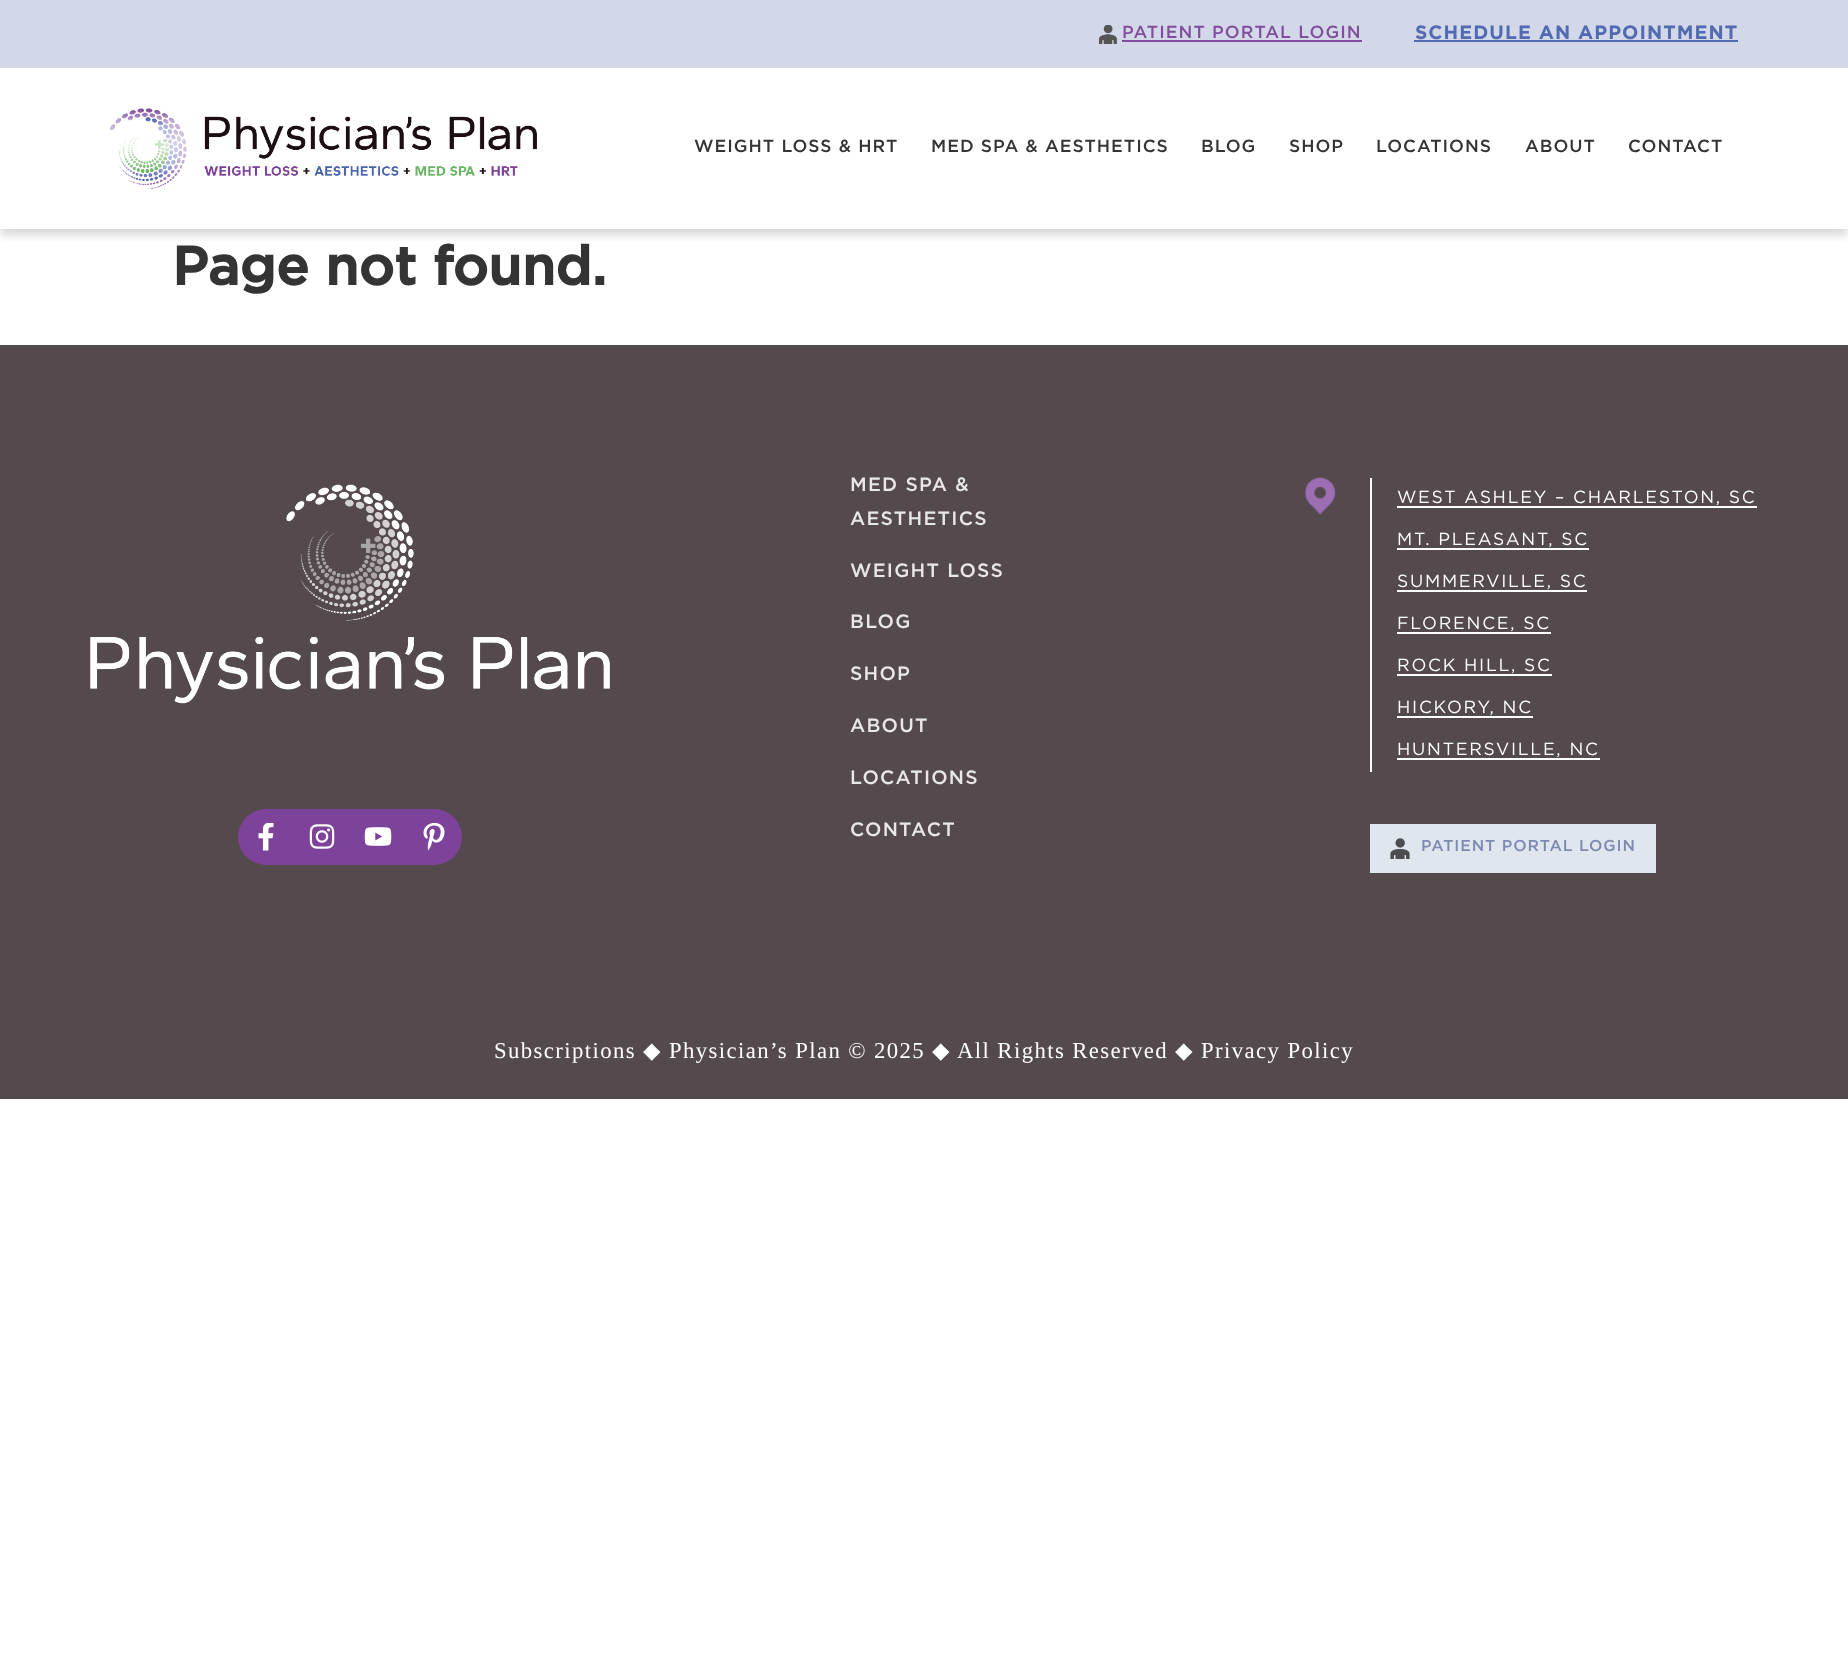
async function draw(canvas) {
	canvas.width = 1848;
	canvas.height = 1663;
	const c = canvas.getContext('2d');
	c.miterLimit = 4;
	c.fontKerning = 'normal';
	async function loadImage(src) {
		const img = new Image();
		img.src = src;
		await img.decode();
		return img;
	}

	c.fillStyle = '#fff';
	c.fillRect(0, 0, 1848, 1663);
	c.save();
	c.beginPath();
	c.rect(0, 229, 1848, 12);
	c.clip();
	c.fillStyle = '#00000029';
	c.filter = 'blur(5px)';
	c.beginPath();
	c.rect(0, 5, 1848, 230);
	c.fill();
	c.filter = 'none';
	c.restore();
	c.fillStyle = '#d2d8e8';
	c.fillRect(0, 0, 1848, 68);
	c.drawImage(await loadImage('img1.png'), 1099, 25, 18, 19);
	c.letterSpacing = '1.05px';
	c.font = '500 17.5px Gotham';
	c.fillStyle = '#814d9d';
	c.fillText('PATIENT PORTAL LOGIN', 1122, 38);
	c.fillRect(1122, 40, 240, 2);
	c.font = 'bold 19.25px "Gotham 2"';
	c.fillStyle = '#526ab1';
	c.fillText('SCHEDULE AN APPOINTMENT', 1415, 39);
	c.fillRect(1414, 40, 324, 2);
	c.drawImage(await loadImage('img2.png'), 110, 108, 427, 81);
	c.letterSpacing = '1px';
	c.font = '500 17.5px Gotham';
	c.fillStyle = '#343434';
	for (const [text, x, y] of [
		['WEIGHT LOSS & HRT', 694, 152],
		['MED SPA & AESTHETICS', 931, 152],
		['BLOG', 1201, 152],
		['SHOP', 1289, 152],
		['LOCATIONS', 1376, 152],
		['ABOUT', 1525, 152],
		['CONTACT', 1628, 152],
	]) {
		c.fillText(text, x, y);
	}
	c.letterSpacing = '0px';
	c.font = 'bold 54.25px Gotham';
	c.fillText('Page not found.', 172, 285);
	c.fillStyle = '#544a4e';
	c.fillRect(0, 345, 1848, 754);
	c.drawImage(await loadImage('img3.png'), 90, 484, 520, 220);
	c.fillStyle = '#7d4299';
	c.beginPath();
	c.roundRect(238, 809, 224, 56, 28);
	c.fill();
	c.drawImage(await loadImage('img4.png'), 258, 823, 16, 28);
	c.drawImage(await loadImage('img5.png'), 309, 824, 26, 25);
	c.drawImage(await loadImage('img6.png'), 364, 827, 28, 19);
	c.drawImage(await loadImage('img7.png'), 423, 823, 22, 28);
	c.letterSpacing = '1.25px';
	c.font = '500 19.25px Gotham';
	c.fillStyle = '#e9e7e8';
	for (const [text, x, y] of [
		['MED SPA &', 850, 491],
		['AESTHETICS', 850, 525],
		['WEIGHT LOSS', 850, 577],
		['BLOG', 850, 628],
		['SHOP', 850, 680],
		['ABOUT', 850, 732],
		['LOCATIONS', 850, 784],
		['CONTACT', 850, 836],
	]) {
		c.fillText(text, x, y);
	}
	c.drawImage(await loadImage('img8.png'), 1305, 477, 31, 38);
	c.fillStyle = '#fff';
	c.fillRect(1370, 478, 2, 294);
	c.letterSpacing = '1.75px';
	c.font = '17.5px Gotham';
	c.fillText('WEST ASHLEY – CHARLESTON, SC', 1397, 503);
	c.fillRect(1397, 506, 360, 2);
	c.fillText('MT. PLEASANT, SC', 1397, 545);
	c.fillRect(1397, 548, 192, 2);
	c.fillText('SUMMERVILLE, SC', 1397, 587);
	c.fillRect(1397, 590, 190, 2);
	c.fillText('FLORENCE, SC', 1397, 629);
	c.fillRect(1397, 632, 154, 2);
	c.fillText('ROCK HILL, SC', 1397, 671);
	c.fillRect(1397, 674, 155, 2);
	c.fillText('HICKORY, NC', 1397, 713);
	c.fillRect(1397, 716, 136, 2);
	c.fillText('HUNTERSVILLE, NC', 1397, 755);
	c.fillRect(1397, 758, 203, 2);
	c.fillStyle = '#dfe6ee';
	c.fillRect(1370, 824, 286, 49);
	c.drawImage(await loadImage('img9.png'), 1390, 838, 20, 21);
	c.letterSpacing = '0.9px';
	c.font = '500 15.75px Gotham';
	c.fillStyle = '#7e89b2';
	c.fillText('PATIENT PORTAL LOGIN', 1421, 851);
	c.letterSpacing = '1.4px';
	c.font = '22.75px Liberation Serif';
	c.fillStyle = '#fff';
	c.fillText('Subscriptions', 494, 1058);
	c.font = '22.75px DejaVu Sans';
	c.fillText('◆', 643, 1058);
	c.font = '22.75px Liberation Serif';
	c.fillText('Physician’s Plan © 2025', 669, 1058);
	c.font = '22.75px DejaVu Sans';
	c.fillText('◆', 932, 1058);
	c.font = '22.75px Liberation Serif';
	c.fillText('All Rights Reserved', 957, 1058);
	c.font = '22.75px DejaVu Sans';
	c.fillText('◆', 1175, 1058);
	c.font = '22.75px Liberation Serif';
	c.fillText('Privacy Policy', 1201, 1058);
}

draw(document.querySelector('canvas'));
